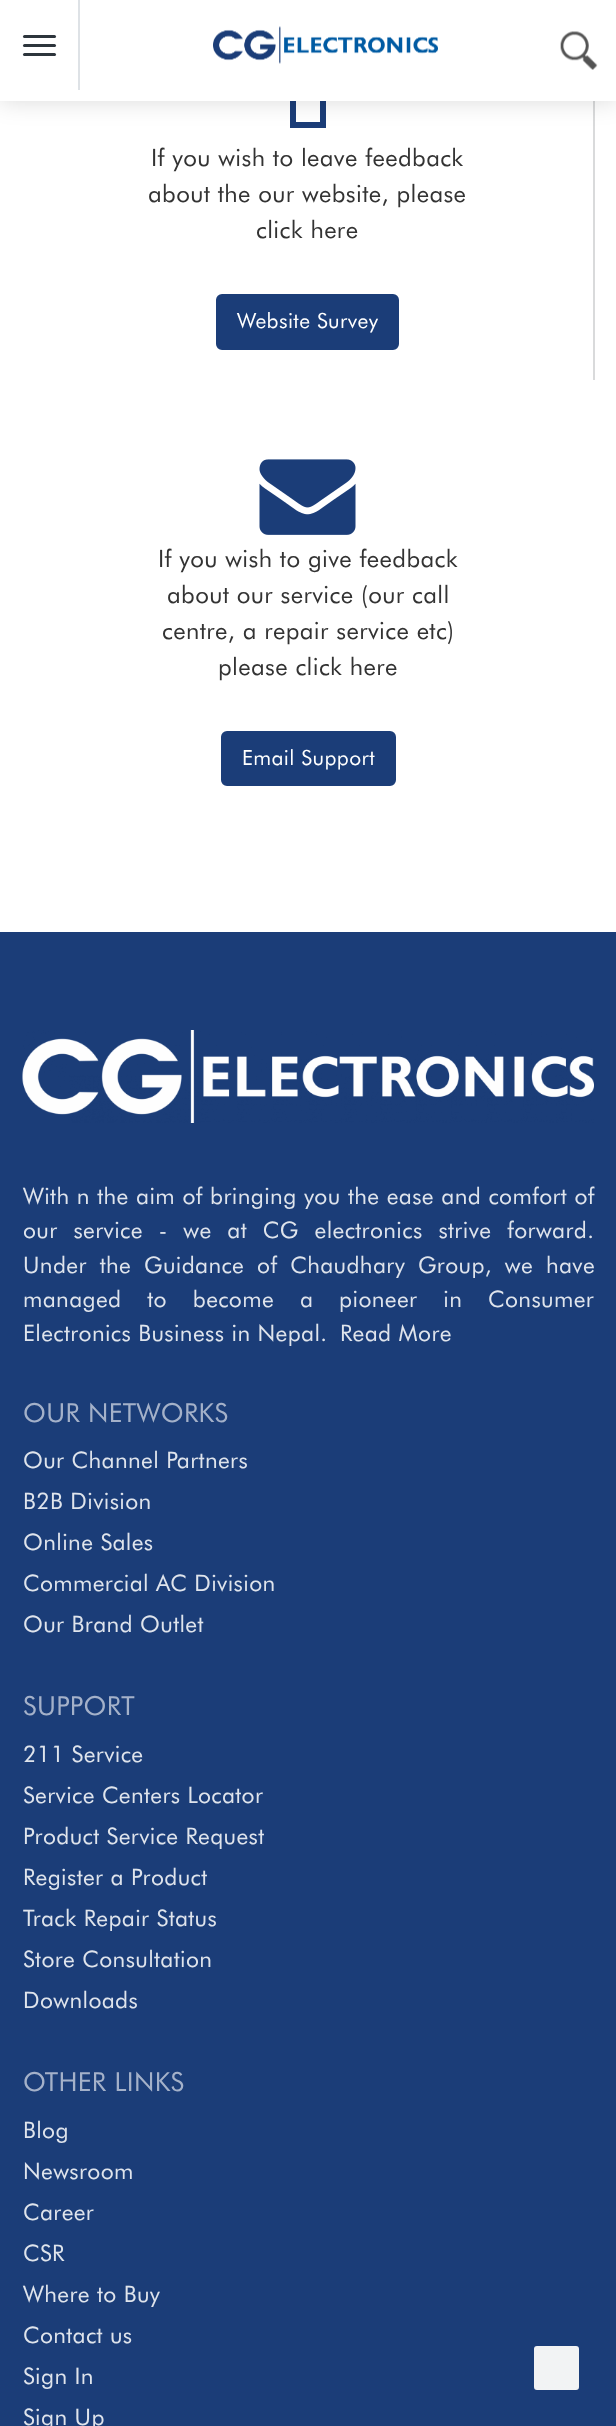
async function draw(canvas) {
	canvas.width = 616;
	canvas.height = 2426;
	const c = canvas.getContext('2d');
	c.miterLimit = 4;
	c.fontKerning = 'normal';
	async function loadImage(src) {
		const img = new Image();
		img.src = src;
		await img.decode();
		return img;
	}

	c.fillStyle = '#fff';
	c.fillRect(0, 0, 616, 2426);
	c.fillStyle = '#d9dadb';
	c.fillRect(593, 101, 2, 279);
	c.fillStyle = '#1b3d78';
	c.beginPath();
	c.moveTo(296, 122);
	c.lineTo(320, 122);
	c.lineTo(320, 51);
	c.lineTo(296, 51);
	c.closePath();
	c.moveTo(290, 128);
	c.lineTo(290, 45);
	c.lineTo(326, 45);
	c.lineTo(326, 128);
	c.closePath();
	c.fill();
	c.fillStyle = '#00000026';
	c.filter = 'blur(12px)';
	c.beginPath();
	c.rect(0, 0, 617, 101);
	c.fill();
	c.filter = 'none';
	c.fillStyle = '#fff';
	c.fillRect(0, 0, 616, 101);
	c.fillStyle = '#dee2e6';
	c.fillRect(78, 0, 2, 90);
	c.fillStyle = '#2d353c';
	c.beginPath();
	c.roundRect(23, 35, 33, 3, 1.5);
	c.fill();
	c.beginPath();
	c.roundRect(23, 44, 33, 3, 1.5);
	c.fill();
	c.beginPath();
	c.roundRect(23, 53, 33, 3, 1.5);
	c.fill();
	c.drawImage(await loadImage('img1.png'), 213, 26, 225, 38);
	c.drawImage(await loadImage('img2.png'), 560, 31, 38, 39);
	c.letterSpacing = '0.38px';
	c.font = '24px Futura';
	c.fillStyle = '#333';
	for (const [text, x, y] of [
		['If you wish to leave feedback', 151, 166],
		['about the our website, please', 148, 202],
		['click here', 256, 238],
	]) {
		c.fillText(text, x, y);
	}
	c.fillStyle = '#1b3d78';
	c.beginPath();
	c.roundRect(217.5, 295.5, 180, 53, 4.5);
	c.fill();
	c.strokeStyle = '#1b3d78';
	c.lineWidth = 3;
	c.stroke();
	c.font = '21px Futura';
	c.fillStyle = '#fff';
	c.fillText('Website Survey', 237, 328);
	c.drawImage(await loadImage('img3.png'), 259, 459, 97, 76);
	c.font = '24px Futura';
	c.fillStyle = '#333';
	for (const [text, x, y] of [
		['If you wish to give feedback', 158, 567],
		['about our service (our call', 167, 603],
		['centre, a repair service etc)', 162, 639],
		['please click here', 218, 675],
	]) {
		c.fillText(text, x, y);
	}
	c.fillStyle = '#1b3d78';
	c.beginPath();
	c.roundRect(222.5, 732.5, 172, 52, 4.5);
	c.fill();
	c.stroke();
	c.font = '21px Futura';
	c.fillStyle = '#fff';
	c.fillText('Email Support', 242, 765);
	c.fillStyle = '#1b3d78';
	c.fillRect(0, 932, 616, 1494);
	c.drawImage(await loadImage('img4.png'), 22, 1030, 572, 93);
	c.wordSpacing = '0.25px';
	c.font = '22.8px Futura';
	c.fillStyle = '#dfe4ec';
	c.fillText('With n the aim of bringing you the ease and comfort of', 23, 1204);
	c.wordSpacing = '8.75px';
	c.fillText('our service - we at CG electronics strive forward.', 23, 1238);
	c.wordSpacing = '5.75px';
	c.fillText('Under the Guidance of Chaudhary Group, we have', 23, 1273);
	c.wordSpacing = '18.75px';
	c.fillText('managed to become a pioneer in Consumer', 23, 1307);
	c.wordSpacing = '0px';
	c.fillText('Electronics Business in Nepal.', 23, 1341);
	c.fillText('Read More', 340, 1341);
	c.font = '26.25px Futura';
	c.fillStyle = '#a4b1c9';
	c.fillText('OUR NETWORKS', 23, 1422);
	c.font = '22.8px Futura';
	c.fillStyle = '#dfe4ec';
	for (const [text, x, y] of [
		['Our Channel Partners', 23, 1468],
		['B2B Division', 23, 1509],
		['Online Sales', 23, 1550],
		['Commercial AC Division', 23, 1591],
		['Our Brand Outlet', 23, 1632],
	]) {
		c.fillText(text, x, y);
	}
	c.font = '26.25px Futura';
	c.fillStyle = '#a4b1c9';
	c.fillText('SUPPORT', 23, 1715);
	c.font = '22.8px Futura';
	c.fillStyle = '#dfe4ec';
	for (const [text, x, y] of [
		['211 Service', 23, 1762],
		['Service Centers Locator', 23, 1803],
		['Product Service Request', 23, 1844],
		['Register a Product', 23, 1885],
		['Track Repair Status', 23, 1926],
		['Store Consultation', 23, 1967],
		['Downloads', 23, 2008],
	]) {
		c.fillText(text, x, y);
	}
	c.font = '26.25px Futura';
	c.fillStyle = '#a4b1c9';
	c.fillText('OTHER LINKS', 23, 2091);
	c.font = '22.8px Futura';
	c.fillStyle = '#dfe4ec';
	for (const [text, x, y] of [
		['Blog', 23, 2138],
		['Newsroom', 23, 2179],
		['Career', 23, 2220],
		['CSR', 23, 2261],
		['Where to Buy', 23, 2302],
		['Contact us', 23, 2343],
		['Sign In', 23, 2384],
		['Sign Up', 23, 2425],
	]) {
		c.fillText(text, x, y);
	}
	c.fillStyle = '#f2f3f4';
	c.beginPath();
	c.roundRect(535.5, 2347.5, 42, 41, 1.5);
	c.fill();
	c.strokeStyle = '#f2f3f4';
	c.stroke();
}

draw(document.querySelector('canvas'));
